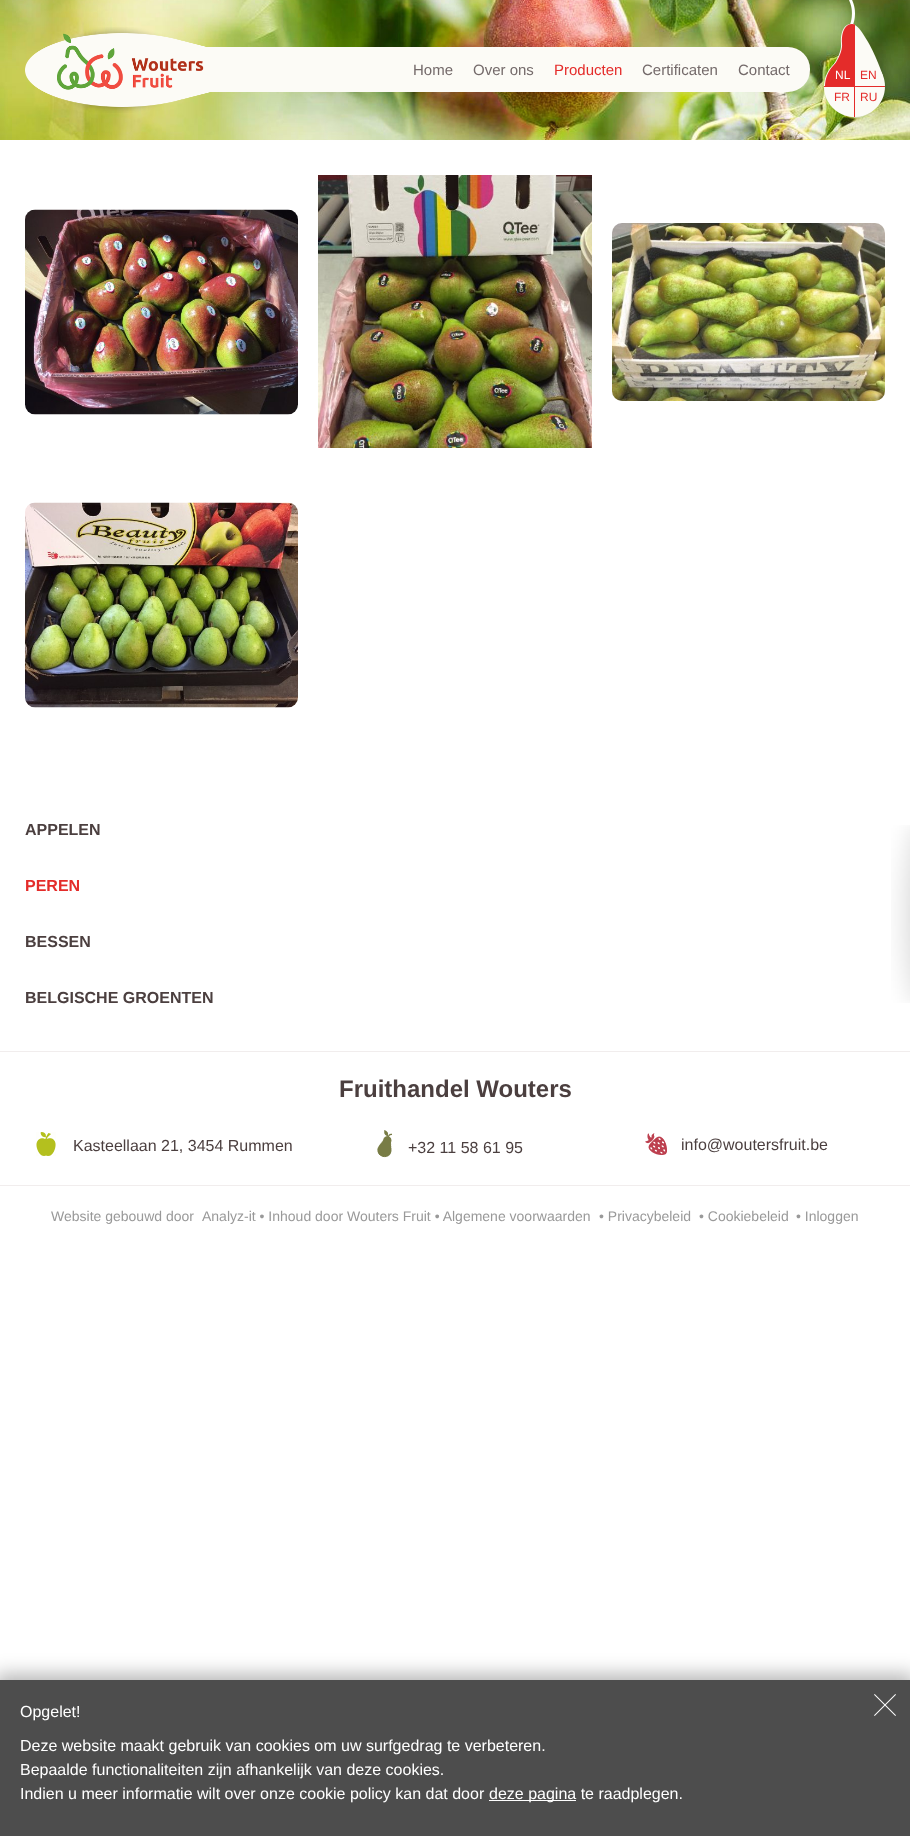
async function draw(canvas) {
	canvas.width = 910;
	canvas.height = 1836;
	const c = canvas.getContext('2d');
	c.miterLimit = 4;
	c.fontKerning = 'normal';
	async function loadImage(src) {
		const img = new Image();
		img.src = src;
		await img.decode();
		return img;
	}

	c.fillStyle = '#fff';
	c.fillRect(0, 0, 910, 1836);
	c.drawImage(await loadImage('img1.png'), 0, 0, 910, 140);
	c.fillStyle = '#fcfbf6';
	c.beginPath();
	c.roundRect(190, 47, 620, 45, [0, 22, 22, 0]);
	c.fill();
	c.font = '15px Liberation Sans';
	c.fillStyle = '#746a6a';
	c.fillText('Home', 413, 75);
	c.fillText('Over ons', 473, 75);
	c.fillStyle = '#e42c2a';
	c.fillText('Producten', 554, 75);
	c.fillStyle = '#746a6a';
	c.fillText('Certificaten', 642, 75);
	c.fillText('Contact', 738, 75);
	c.drawImage(await loadImage('img2.png'), 25, 27, 185, 86);
	c.drawImage(await loadImage('img3.png'), 824, 0, 61, 117);
	c.drawImage(await loadImage('img4.png'), 825, 24, 30, 62);
	c.font = '12px Liberation Sans';
	c.fillStyle = '#fff';
	c.fillText('NL', 835, 79);
	c.fillStyle = '#e42c2a';
	for (const [text, x, y] of [
		['EN', 860, 79],
		['FR', 834, 101],
		['RU', 860, 101],
	]) {
		c.fillText(text, x, y);
	}
	c.drawImage(await loadImage('img5.png'), 25, 209, 273, 206);
	c.drawImage(await loadImage('img6.png'), 318, 175, 274, 273);
	c.drawImage(await loadImage('img7.png'), 612, 223, 273, 178);
	c.drawImage(await loadImage('img8.png'), 25, 502, 273, 206);
	c.font = 'bold 16px Liberation Sans';
	c.fillStyle = '#4b3f3f';
	c.fillText('APPELEN', 25, 835);
	c.drawImage(await loadImage('img9.png'), 891, 825, 19, 178);
	c.fillStyle = '#e42c2a';
	c.fillText('PEREN', 25, 891);
	c.fillStyle = '#4b3f3f';
	c.fillText('BESSEN', 25, 947);
	c.fillText('BELGISCHE GROENTEN', 25, 1003);
	c.fillStyle = '#f1eded';
	c.fillRect(0, 1051, 910, 1);
	c.font = 'bold 24px Liberation Sans';
	c.fillStyle = '#4b3f3f';
	c.fillText('Fruithandel Wouters', 339, 1097);
	c.drawImage(await loadImage('img10.png'), 36, 1132, 20, 24);
	c.font = '16px Liberation Sans';
	c.fillText('Kasteellaan 21, 3454 Rummen', 73, 1151);
	c.drawImage(await loadImage('img11.png'), 377, 1130, 15, 28);
	c.fillText('+32 11 58 61 95', 408, 1153);
	c.drawImage(await loadImage('img12.png'), 645, 1133, 22, 22);
	c.fillText('info@woutersfruit.be', 681, 1150);
	c.fillStyle = '#f1eded';
	c.fillRect(0, 1185, 910, 1);
	c.font = '14px Liberation Sans';
	c.fillStyle = '#999';
	for (const [text, x, y] of [
		['Website gebouwd door', 51, 1221],
		['Analyz-it • Inhoud door Wouters Fruit • Algemene voorwaarden', 202, 1221],
		['• Privacybeleid', 599, 1221],
		['• Cookiebeleid', 699, 1221],
		['• Inloggen', 796, 1221],
	]) {
		c.fillText(text, x, y);
	}
	c.fillStyle = '#0000004f';
	c.filter = 'blur(10px)';
	c.beginPath();
	c.rect(-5, 1675, 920, 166);
	c.fill();
	c.filter = 'none';
	c.fillStyle = '#4d4d4d';
	c.fillRect(0, 1680, 910, 156);
	c.font = '16px Liberation Sans';
	c.fillStyle = '#fff';
	c.fillText('Opgelet!', 20, 1717);
	c.drawImage(await loadImage('img13.png'), 874, 1694, 22, 22);
	for (const [text, x, y] of [
		['Deze website maakt gebruik van cookies om uw surfgedrag te verbeteren.', 20, 1751],
		['Bepaalde functionaliteiten zijn afhankelijk van deze cookies.', 20, 1775],
		['Indien u meer informatie wilt over onze cookie policy kan dat door', 20, 1799],
	]) {
		c.fillText(text, x, y);
	}
	c.fillRect(489, 1800, 87, 1);
	c.fillText('deze pagina te raadplegen.', 489, 1799);
}

draw(document.querySelector('canvas'));
